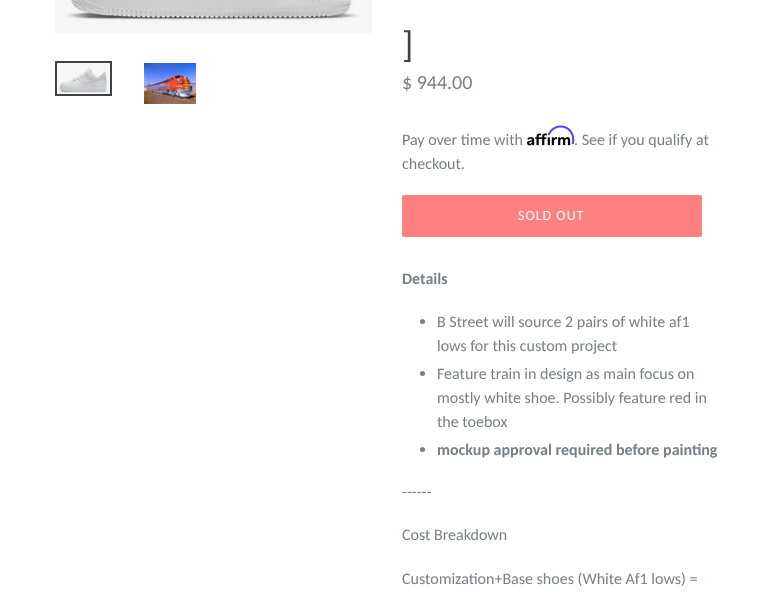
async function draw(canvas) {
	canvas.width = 774;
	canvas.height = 599;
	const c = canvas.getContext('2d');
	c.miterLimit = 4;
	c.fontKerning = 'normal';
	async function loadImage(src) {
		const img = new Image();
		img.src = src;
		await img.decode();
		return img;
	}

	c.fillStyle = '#fff';
	c.fillRect(0, 0, 774, 599);
	c.drawImage(await loadImage('img1.png'), 55, 0, 317, 33);
	c.strokeStyle = '#3d4246';
	c.lineWidth = 2;
	c.strokeRect(56, 62, 55, 33);
	c.drawImage(await loadImage('img2.png'), 57, 63, 53, 31);
	c.drawImage(await loadImage('img3.png'), 144, 63, 52, 41);
	c.font = '37px Carlito';
	c.fillStyle = '#3d4246';
	c.fillText(']', 402, 57);
	c.font = '20px Carlito';
	c.fillStyle = '#788188';
	c.fillText('$ 944.00', 402, 89);
	c.font = '16px Carlito';
	c.fillText('Pay over time with', 402, 145);
	c.drawImage(await loadImage('img5.png'), 527, 133, 44, 13);
	c.fillText('. See if you qualify at', 574, 145);
	c.drawImage(await loadImage('img4.png'), 547, 125, 28, 20);
	c.fillText('checkout.', 402, 169);
	c.fillStyle = '#ff8080';
	c.beginPath();
	c.roundRect(402, 195, 300, 42, 2);
	c.fill();
	c.letterSpacing = '1px';
	c.font = '14px Carlito';
	c.fillStyle = '#fff';
	c.fillText('SOLD OUT', 518, 220);
	c.letterSpacing = '0px';
	c.font = 'bold 16px Carlito';
	c.fillStyle = '#788188';
	c.fillText('Details', 402, 284);
	c.beginPath();
	c.arc(422.5, 321.5, 2.5, 0, 2 * Math.PI);
	c.fill();
	c.font = '16px Carlito';
	c.fillText('B Street will source 2 pairs of white af1', 437, 327);
	c.fillText('lows for this custom project', 437, 351);
	c.beginPath();
	c.arc(422.5, 373.5, 2.5, 0, 2 * Math.PI);
	c.fill();
	for (const [text, x, y] of [
		['Feature train in design as main focus on', 437, 379],
		['mostly white shoe. Possibly feature red in', 437, 403],
		['the toebox', 437, 427],
	]) {
		c.fillText(text, x, y);
	}
	c.beginPath();
	c.arc(422.5, 449.5, 2.5, 0, 2 * Math.PI);
	c.fill();
	c.font = 'bold 16px Carlito';
	c.fillText('mockup approval required before painting', 437, 455);
	c.font = '16px Carlito';
	for (const [text, x, y] of [
		['------', 402, 497],
		['Cost Breakdown', 402, 540],
		['Customization+Base shoes (White Af1 lows) =', 402, 584],
	]) {
		c.fillText(text, x, y);
	}
}

draw(document.querySelector('canvas'));
